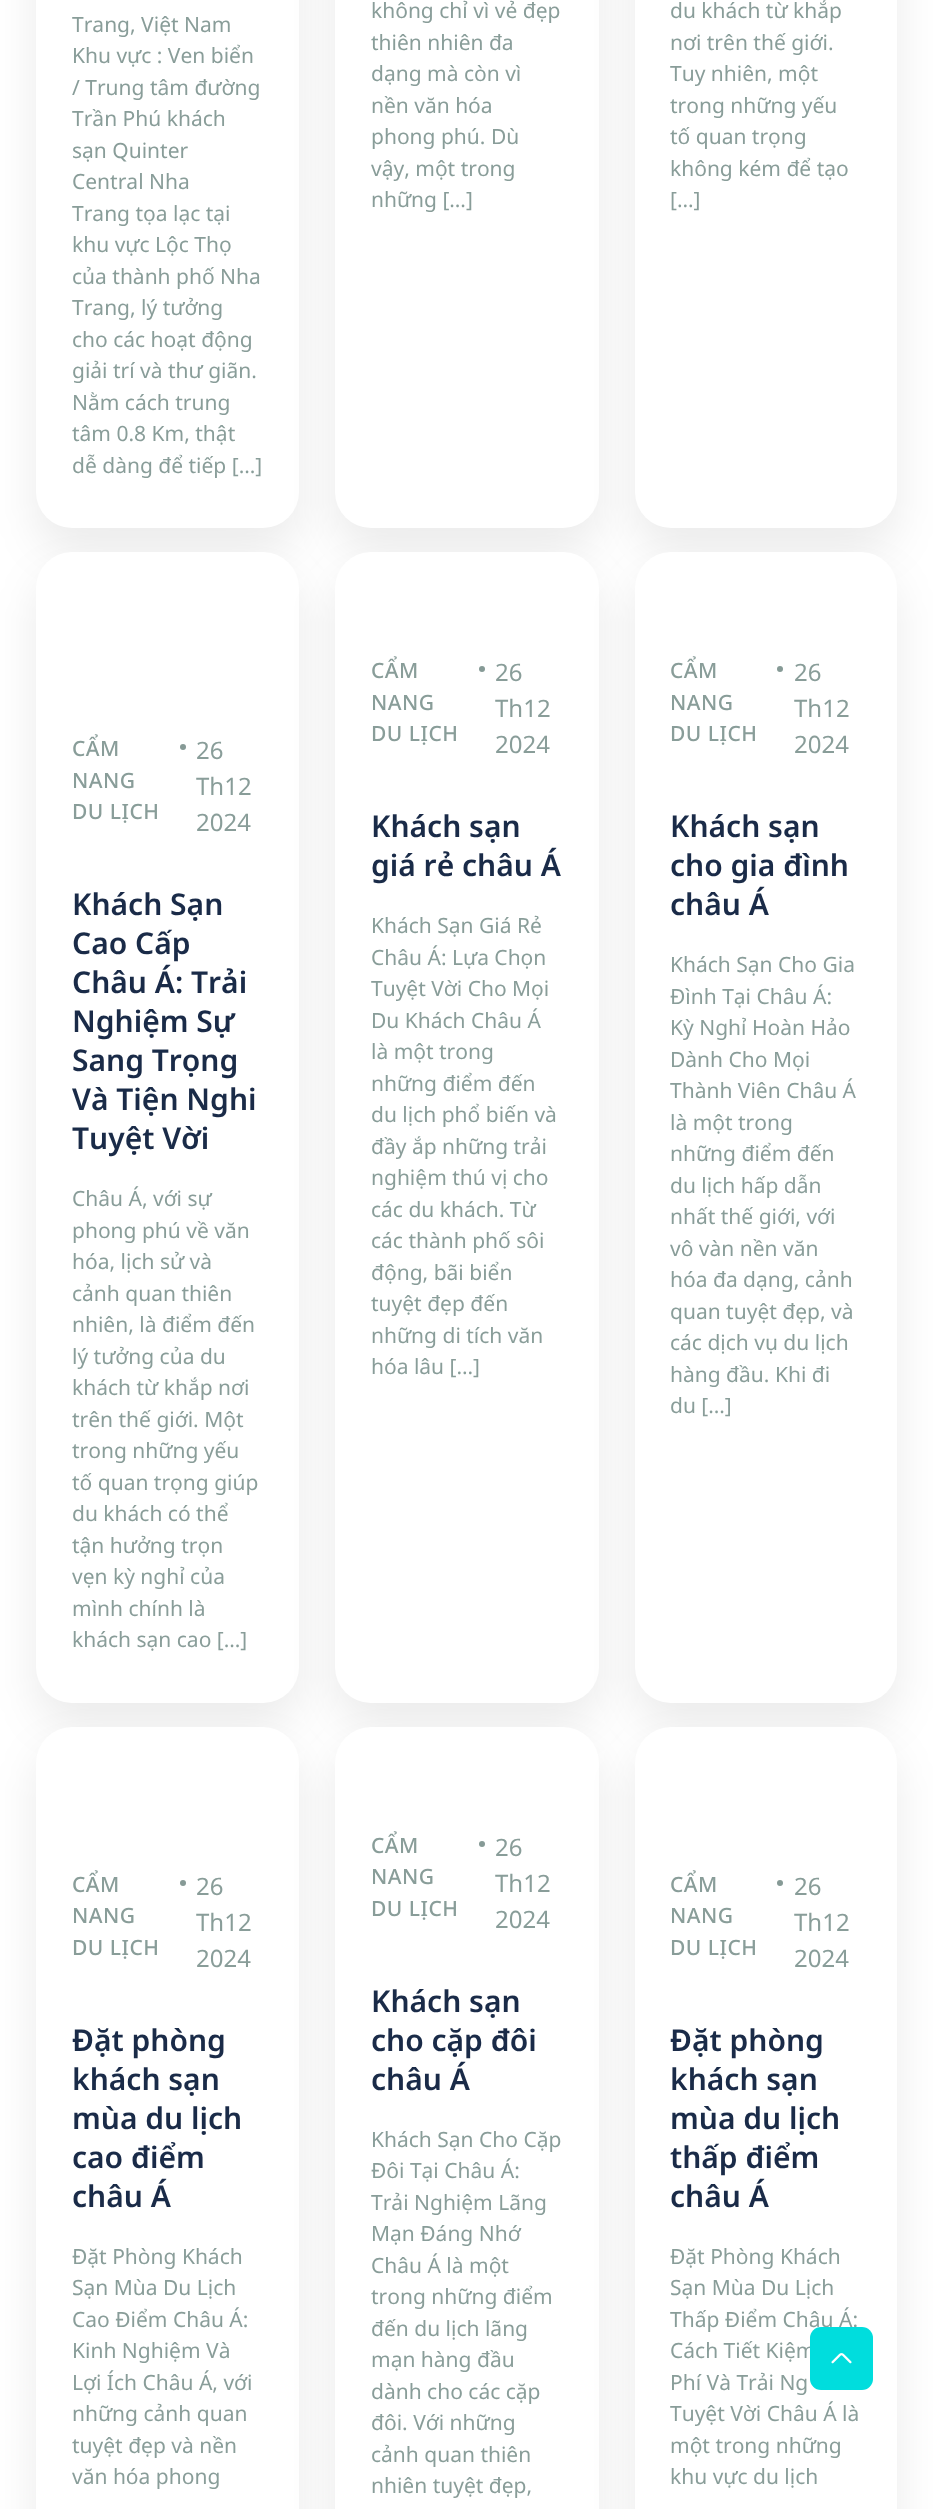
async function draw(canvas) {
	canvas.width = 933;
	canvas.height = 2509;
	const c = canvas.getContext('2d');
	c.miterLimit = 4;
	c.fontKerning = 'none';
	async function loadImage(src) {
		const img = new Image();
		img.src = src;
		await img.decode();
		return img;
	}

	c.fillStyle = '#fff';
	c.fillRect(0, 0, 933, 2509);
	c.fillStyle = '#00000014';
	c.filter = 'blur(22.5px)';
	c.beginPath();
	c.roundRect(36, -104, 263, 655, 36);
	c.fill();
	c.filter = 'none';
	c.fillStyle = '#fff';
	c.beginPath();
	c.roundRect(36, -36, 263, 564, 36);
	c.fill();
	c.font = '21px Noto Sans';
	c.fillStyle = '#899d99';
	for (const [text, x, y] of [
		['Trang, Việt Nam', 72, 32],
		['Khu vực : Ven biển', 72, 63],
		['/ Trung tâm đường', 72, 95],
		['Trần Phú khách', 72, 126],
		['sạn Quinter', 72, 158],
		['Central Nha', 72, 189],
		['Trang tọa lạc tại', 72, 221],
		['khu vực Lộc Thọ', 72, 252],
		['của thành phố Nha', 72, 284],
		['Trang, lý tưởng', 72, 315],
		['cho các hoạt động', 72, 347],
		['giải trí và thư giãn.', 72, 378],
		['Nằm cách trung', 72, 410],
		['tâm 0.8 Km, thật', 72, 441],
		['dễ dàng để tiếp […]', 72, 473],
	]) {
		c.fillText(text, x, y);
	}
	c.fillStyle = '#00000014';
	c.filter = 'blur(22.5px)';
	c.beginPath();
	c.roundRect(335, -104, 264, 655, 36);
	c.fill();
	c.filter = 'none';
	c.fillStyle = '#fff';
	c.beginPath();
	c.roundRect(335, -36, 264, 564, 36);
	c.fill();
	c.fillStyle = '#899d99';
	for (const [text, x, y] of [
		['không chỉ vì vẻ đẹp', 371, 18],
		['thiên nhiên đa', 371, 50],
		['dạng mà còn vì', 371, 81],
		['nền văn hóa', 371, 113],
		['phong phú. Dù', 371, 144],
		['vậy, một trong', 371, 176],
		['những […]', 371, 207],
	]) {
		c.fillText(text, x, y);
	}
	c.fillStyle = '#00000014';
	c.filter = 'blur(22.5px)';
	c.beginPath();
	c.roundRect(635, -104, 262, 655, 36);
	c.fill();
	c.filter = 'none';
	c.fillStyle = '#fff';
	c.beginPath();
	c.roundRect(635, -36, 262, 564, 36);
	c.fill();
	c.fillStyle = '#899d99';
	for (const [text, x, y] of [
		['du khách từ khắp', 670, 18],
		['nơi trên thế giới.', 670, 50],
		['Tuy nhiên, một', 670, 81],
		['trong những yếu', 670, 113],
		['tố quan trọng', 670, 144],
		['không kém để tạo', 670, 176],
		['[…]', 670, 207],
	]) {
		c.fillText(text, x, y);
	}
	c.fillStyle = '#00000014';
	c.filter = 'blur(22.5px)';
	c.beginPath();
	c.roundRect(36, 575, 263, 1150, 36);
	c.fill();
	c.filter = 'none';
	c.fillStyle = '#fff';
	c.beginPath();
	c.roundRect(36, 552, 263, 1151, 36);
	c.fill();
	c.letterSpacing = '0.5px';
	c.font = '500 21px Noto Sans';
	c.fillStyle = '#899d99';
	for (const [text, x, y] of [
		['CẨM', 72, 756],
		['NANG', 72, 788],
		['DU LỊCH', 72, 819],
	]) {
		c.fillText(text, x, y);
	}
	c.fillStyle = '#869a96';
	c.beginPath();
	c.arc(183, 747, 3, 0, 2 * Math.PI);
	c.fill();
	c.letterSpacing = '0px';
	c.font = '24px Noto Sans';
	c.fillStyle = '#899d99';
	for (const [text, x, y] of [
		['26', 196, 759],
		['Th12', 196, 795],
		['2024', 196, 831],
	]) {
		c.fillText(text, x, y);
	}
	c.font = '600 30px Noto Sans';
	c.fillStyle = '#1a2b48';
	for (const [text, x, y] of [
		['Khách Sạn', 72, 915],
		['Cao Cấp', 72, 954],
		['Châu Á: Trải', 72, 993],
		['Nghiệm Sự', 72, 1032],
		['Sang Trọng', 72, 1071],
		['Và Tiện Nghi', 72, 1110],
		['Tuyệt Vời', 72, 1149],
	]) {
		c.fillText(text, x, y);
	}
	c.font = '21px Noto Sans';
	c.fillStyle = '#899d99';
	for (const [text, x, y] of [
		['Châu Á, với sự', 72, 1206],
		['phong phú về văn', 72, 1238],
		['hóa, lịch sử và', 72, 1269],
		['cảnh quan thiên', 72, 1301],
		['nhiên, là điểm đến', 72, 1332],
		['lý tưởng của du', 72, 1364],
		['khách từ khắp nơi', 72, 1395],
		['trên thế giới. Một', 72, 1427],
		['trong những yếu', 72, 1458],
		['tố quan trọng giúp', 72, 1490],
		['du khách có thể', 72, 1521],
		['tận hưởng trọn', 72, 1553],
		['vẹn kỳ nghỉ của', 72, 1584],
		['mình chính là', 72, 1616],
		['khách sạn cao […]', 72, 1647],
	]) {
		c.fillText(text, x, y);
	}
	c.fillStyle = '#00000014';
	c.filter = 'blur(22.5px)';
	c.beginPath();
	c.roundRect(335, 575, 264, 1150, 36);
	c.fill();
	c.filter = 'none';
	c.fillStyle = '#fff';
	c.beginPath();
	c.roundRect(335, 552, 264, 1151, 36);
	c.fill();
	c.letterSpacing = '0.5px';
	c.font = '500 21px Noto Sans';
	c.fillStyle = '#899d99';
	for (const [text, x, y] of [
		['CẨM', 371, 678],
		['NANG', 371, 710],
		['DU LỊCH', 371, 741],
	]) {
		c.fillText(text, x, y);
	}
	c.fillStyle = '#869a96';
	c.beginPath();
	c.arc(482, 669, 3, 0, 2 * Math.PI);
	c.fill();
	c.letterSpacing = '0px';
	c.font = '24px Noto Sans';
	c.fillStyle = '#899d99';
	for (const [text, x, y] of [
		['26', 495, 681],
		['Th12', 495, 717],
		['2024', 495, 753],
	]) {
		c.fillText(text, x, y);
	}
	c.font = '600 30px Noto Sans';
	c.fillStyle = '#1a2b48';
	c.fillText('Khách sạn', 371, 837);
	c.fillText('giá rẻ châu Á', 371, 876);
	c.font = '21px Noto Sans';
	c.fillStyle = '#899d99';
	for (const [text, x, y] of [
		['Khách Sạn Giá Rẻ', 371, 933],
		['Châu Á: Lựa Chọn', 371, 965],
		['Tuyệt Vời Cho Mọi', 371, 996],
		['Du Khách Châu Á', 371, 1028],
		['là một trong', 371, 1059],
		['những điểm đến', 371, 1091],
		['du lịch phổ biến và', 371, 1122],
		['đầy ắp những trải', 371, 1154],
		['nghiệm thú vị cho', 371, 1185],
		['các du khách. Từ', 371, 1217],
		['các thành phố sôi', 371, 1248],
		['động, bãi biển', 371, 1280],
		['tuyệt đẹp đến', 371, 1311],
		['những di tích văn', 371, 1343],
		['hóa lâu […]', 371, 1374],
	]) {
		c.fillText(text, x, y);
	}
	c.fillStyle = '#00000014';
	c.filter = 'blur(22.5px)';
	c.beginPath();
	c.roundRect(635, 575, 262, 1150, 36);
	c.fill();
	c.filter = 'none';
	c.fillStyle = '#fff';
	c.beginPath();
	c.roundRect(635, 552, 262, 1151, 36);
	c.fill();
	c.letterSpacing = '0.5px';
	c.font = '500 21px Noto Sans';
	c.fillStyle = '#899d99';
	for (const [text, x, y] of [
		['CẨM', 670, 678],
		['NANG', 670, 710],
		['DU LỊCH', 670, 741],
	]) {
		c.fillText(text, x, y);
	}
	c.fillStyle = '#869a96';
	c.beginPath();
	c.arc(780, 669, 3, 0, 2 * Math.PI);
	c.fill();
	c.letterSpacing = '0px';
	c.font = '24px Noto Sans';
	c.fillStyle = '#899d99';
	for (const [text, x, y] of [
		['26', 794, 681],
		['Th12', 794, 717],
		['2024', 794, 753],
	]) {
		c.fillText(text, x, y);
	}
	c.font = '600 30px Noto Sans';
	c.fillStyle = '#1a2b48';
	for (const [text, x, y] of [
		['Khách sạn', 670, 837],
		['cho gia đình', 670, 876],
		['châu Á', 670, 915],
	]) {
		c.fillText(text, x, y);
	}
	c.font = '21px Noto Sans';
	c.fillStyle = '#899d99';
	for (const [text, x, y] of [
		['Khách Sạn Cho Gia', 670, 972],
		['Đình Tại Châu Á:', 670, 1004],
		['Kỳ Nghỉ Hoàn Hảo', 670, 1035],
		['Dành Cho Mọi', 670, 1067],
		['Thành Viên Châu Á', 670, 1098],
		['là một trong', 670, 1130],
		['những điểm đến', 670, 1161],
		['du lịch hấp dẫn', 670, 1193],
		['nhất thế giới, với', 670, 1224],
		['vô vàn nền văn', 670, 1256],
		['hóa đa dạng, cảnh', 670, 1287],
		['quan tuyệt đẹp, và', 670, 1319],
		['các dịch vụ du lịch', 670, 1350],
		['hàng đầu. Khi đi', 670, 1382],
		['du […]', 670, 1413],
	]) {
		c.fillText(text, x, y);
	}
	c.fillStyle = '#00000014';
	c.filter = 'blur(22.5px)';
	c.beginPath();
	c.roundRect(36, 1749, 263, 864, 36);
	c.fill();
	c.filter = 'none';
	c.fillStyle = '#fff';
	c.beginPath();
	c.roundRect(36, 1727, 263, 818, 36);
	c.fill();
	c.letterSpacing = '0.5px';
	c.font = '500 21px Noto Sans';
	c.fillStyle = '#899d99';
	for (const [text, x, y] of [
		['CẨM', 72, 1892],
		['NANG', 72, 1923],
		['DU LỊCH', 72, 1955],
	]) {
		c.fillText(text, x, y);
	}
	c.fillStyle = '#869a96';
	c.beginPath();
	c.arc(183, 1883, 3, 0, 2 * Math.PI);
	c.fill();
	c.letterSpacing = '0px';
	c.font = '24px Noto Sans';
	c.fillStyle = '#899d99';
	for (const [text, x, y] of [
		['26', 196, 1895],
		['Th12', 196, 1931],
		['2024', 196, 1967],
	]) {
		c.fillText(text, x, y);
	}
	c.font = '600 30px Noto Sans';
	c.fillStyle = '#1a2b48';
	for (const [text, x, y] of [
		['Đặt phòng', 72, 2051],
		['khách sạn', 72, 2090],
		['mùa du lịch', 72, 2129],
		['cao điểm', 72, 2168],
		['châu Á', 72, 2207],
	]) {
		c.fillText(text, x, y);
	}
	c.font = '21px Noto Sans';
	c.fillStyle = '#899d99';
	for (const [text, x, y] of [
		['Đặt Phòng Khách', 72, 2264],
		['Sạn Mùa Du Lịch', 72, 2295],
		['Cao Điểm Châu Á:', 72, 2327],
		['Kinh Nghiệm Và', 72, 2358],
		['Lợi Ích Châu Á, với', 72, 2390],
		['những cảnh quan', 72, 2421],
		['tuyệt đẹp và nền', 72, 2453],
		['văn hóa phong', 72, 2484],
	]) {
		c.fillText(text, x, y);
	}
	c.fillStyle = '#00000014';
	c.filter = 'blur(22.5px)';
	c.beginPath();
	c.roundRect(335, 1749, 264, 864, 36);
	c.fill();
	c.filter = 'none';
	c.fillStyle = '#fff';
	c.beginPath();
	c.roundRect(335, 1727, 264, 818, 36);
	c.fill();
	c.letterSpacing = '0.5px';
	c.font = '500 21px Noto Sans';
	c.fillStyle = '#899d99';
	for (const [text, x, y] of [
		['CẨM', 371, 1853],
		['NANG', 371, 1884],
		['DU LỊCH', 371, 1916],
	]) {
		c.fillText(text, x, y);
	}
	c.fillStyle = '#869a96';
	c.beginPath();
	c.arc(482, 1844, 3, 0, 2 * Math.PI);
	c.fill();
	c.letterSpacing = '0px';
	c.font = '24px Noto Sans';
	c.fillStyle = '#899d99';
	for (const [text, x, y] of [
		['26', 495, 1856],
		['Th12', 495, 1892],
		['2024', 495, 1928],
	]) {
		c.fillText(text, x, y);
	}
	c.font = '600 30px Noto Sans';
	c.fillStyle = '#1a2b48';
	for (const [text, x, y] of [
		['Khách sạn', 371, 2012],
		['cho cặp đôi', 371, 2051],
		['châu Á', 371, 2090],
	]) {
		c.fillText(text, x, y);
	}
	c.font = '21px Noto Sans';
	c.fillStyle = '#899d99';
	for (const [text, x, y] of [
		['Khách Sạn Cho Cặp', 371, 2147],
		['Đôi Tại Châu Á:', 371, 2178],
		['Trải Nghiệm Lãng', 371, 2210],
		['Mạn Đáng Nhớ', 371, 2241],
		['Châu Á là một', 371, 2273],
		['trong những điểm', 371, 2304],
		['đến du lịch lãng', 371, 2336],
		['mạn hàng đầu', 371, 2367],
		['dành cho các cặp', 371, 2399],
		['đôi. Với những', 371, 2430],
		['cảnh quan thiên', 371, 2462],
		['nhiên tuyệt đẹp,', 371, 2493],
	]) {
		c.fillText(text, x, y);
	}
	c.fillStyle = '#00000014';
	c.filter = 'blur(22.5px)';
	c.beginPath();
	c.roundRect(635, 1749, 262, 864, 36);
	c.fill();
	c.filter = 'none';
	c.fillStyle = '#fff';
	c.beginPath();
	c.roundRect(635, 1727, 262, 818, 36);
	c.fill();
	c.letterSpacing = '0.5px';
	c.font = '500 21px Noto Sans';
	c.fillStyle = '#899d99';
	for (const [text, x, y] of [
		['CẨM', 670, 1892],
		['NANG', 670, 1923],
		['DU LỊCH', 670, 1955],
	]) {
		c.fillText(text, x, y);
	}
	c.fillStyle = '#869a96';
	c.beginPath();
	c.arc(780, 1883, 3, 0, 2 * Math.PI);
	c.fill();
	c.letterSpacing = '0px';
	c.font = '24px Noto Sans';
	c.fillStyle = '#899d99';
	for (const [text, x, y] of [
		['26', 794, 1895],
		['Th12', 794, 1931],
		['2024', 794, 1967],
	]) {
		c.fillText(text, x, y);
	}
	c.font = '600 30px Noto Sans';
	c.fillStyle = '#1a2b48';
	for (const [text, x, y] of [
		['Đặt phòng', 670, 2051],
		['khách sạn', 670, 2090],
		['mùa du lịch', 670, 2129],
		['thấp điểm', 670, 2168],
		['châu Á', 670, 2207],
	]) {
		c.fillText(text, x, y);
	}
	c.font = '21px Noto Sans';
	c.fillStyle = '#899d99';
	for (const [text, x, y] of [
		['Đặt Phòng Khách', 670, 2264],
		['Sạn Mùa Du Lịch', 670, 2295],
		['Thấp Điểm Châu Á:', 670, 2327],
		['Cách Tiết Kiệm', 670, 2358],
		['Phí Và Trải Ng', 670, 2390],
		['Tuyệt Vời Châu Á là', 670, 2421],
		['một trong những', 670, 2453],
		['khu vực du lịch', 670, 2484],
	]) {
		c.fillText(text, x, y);
	}
	c.fillStyle = '#0dd';
	c.beginPath();
	c.roundRect(810, 2327, 63, 63, 11);
	c.fill();
	c.drawImage(await loadImage('img1.png'), 831, 2353, 21, 11);
}

draw(document.querySelector('canvas'));
